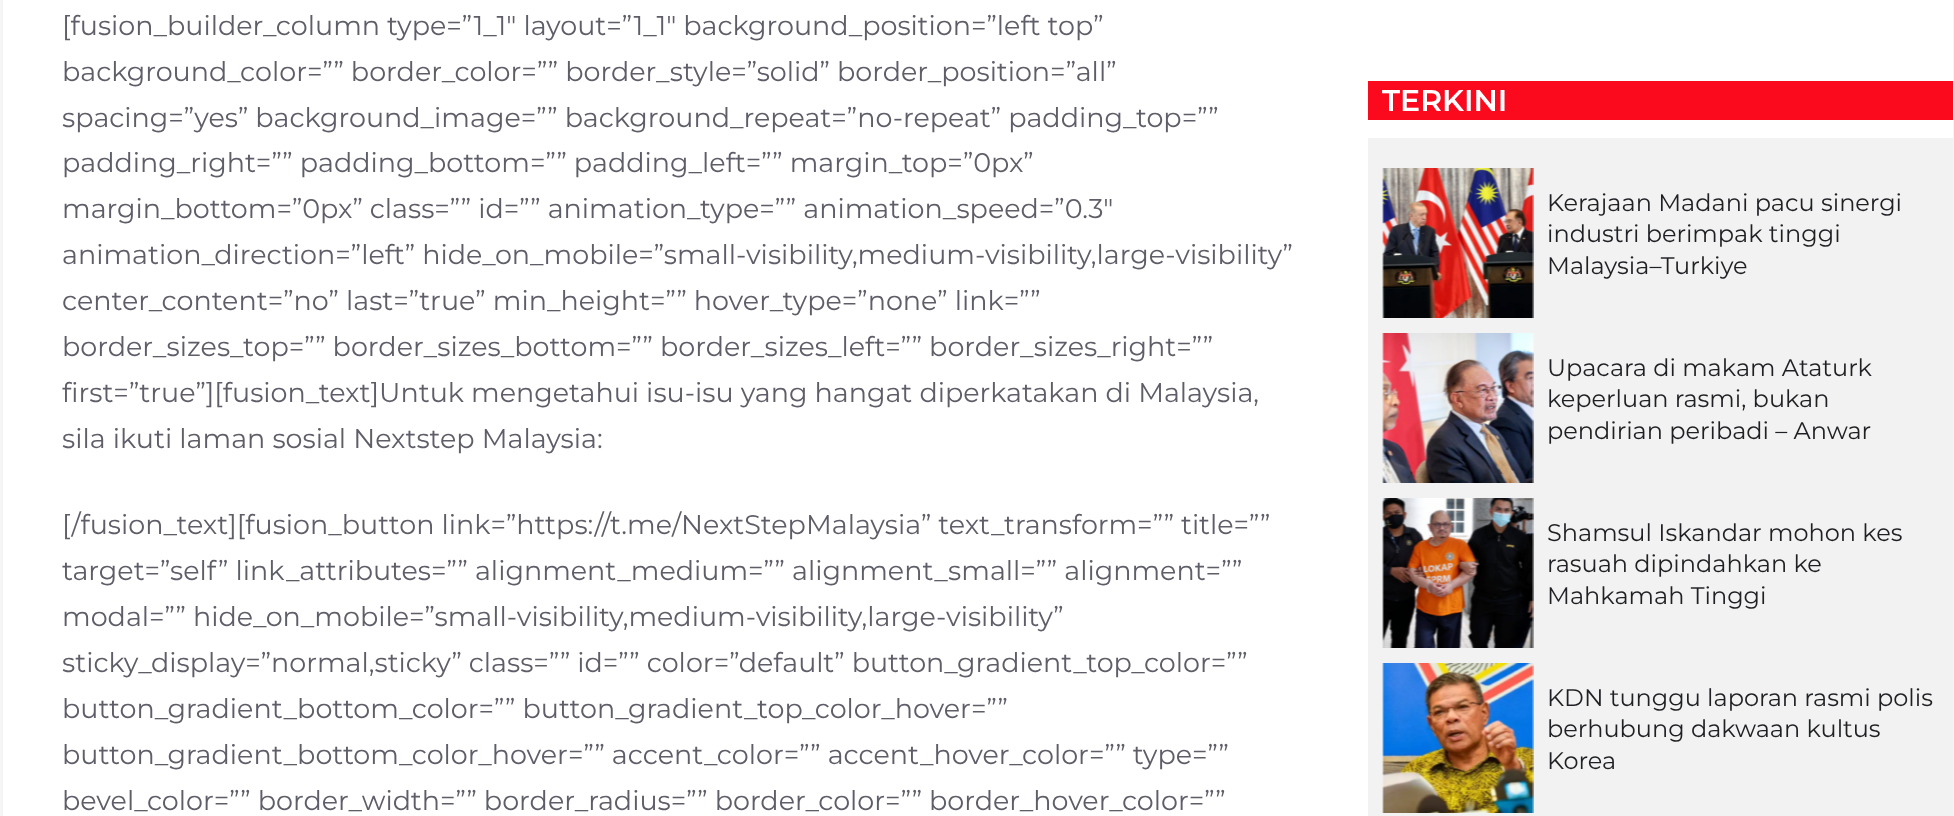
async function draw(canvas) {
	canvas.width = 1954;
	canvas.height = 816;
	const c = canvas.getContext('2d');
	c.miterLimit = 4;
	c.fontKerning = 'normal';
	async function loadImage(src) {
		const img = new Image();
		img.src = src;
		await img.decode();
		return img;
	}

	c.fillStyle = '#fff';
	c.fillRect(0, 0, 1954, 816);
	c.save();
	c.beginPath();
	c.moveTo(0, 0);
	c.lineTo(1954, 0);
	c.lineTo(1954, 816);
	c.lineTo(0, 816);
	c.closePath();
	c.moveTo(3, -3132);
	c.lineTo(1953, -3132);
	c.lineTo(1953, 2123);
	c.lineTo(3, 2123);
	c.closePath();
	c.clip('evenodd');
	c.fillStyle = '#0000004d';
	c.filter = 'blur(15px)';
	c.beginPath();
	c.rect(18, -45, 1920, 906);
	c.fill();
	c.filter = 'none';
	c.restore();
	c.font = '27px Montserrat';
	c.fillStyle = '#5e5e69';
	for (const [text, x, y] of [
		['[fusion_builder_column type=”1_1″ layout=”1_1″ background_position=”left top”', 62, 35],
		['background_color=”” border_color=”” border_style=”solid” border_position=”all”', 62, 81],
		['spacing=”yes” background_image=”” background_repeat=”no-repeat” padding_top=””', 62, 127],
		['padding_right=”” padding_bottom=”” padding_left=”” margin_top=”0px”', 62, 172],
		['margin_bottom=”0px” class=”” id=”” animation_type=”” animation_speed=”0.3″', 62, 218],
		['animation_direction=”left” hide_on_mobile=”small-visibility,medium-visibility,large-visibility”', 62, 264],
		['center_content=”no” last=”true” min_height=”” hover_type=”none” link=””', 62, 310],
		['border_sizes_top=”” border_sizes_bottom=”” border_sizes_left=”” border_sizes_right=””', 62, 356],
		['first=”true”][fusion_text]Untuk mengetahui isu-isu yang hangat diperkatakan di Malaysia,', 62, 402],
		['sila ikuti laman sosial Nextstep Malaysia:', 62, 448],
		['[/fusion_text][fusion_button link=”https://t.me/NextStepMalaysia” text_transform=”” title=””', 62, 534],
		['target=”self” link_attributes=”” alignment_medium=”” alignment_small=”” alignment=””', 62, 580],
		['modal=”” hide_on_mobile=”small-visibility,medium-visibility,large-visibility”', 62, 626],
		['sticky_display=”normal,sticky” class=”” id=”” color=”default” button_gradient_top_color=””', 62, 672],
		['button_gradient_bottom_color=”” button_gradient_top_color_hover=””', 62, 718],
		['button_gradient_bottom_color_hover=”” accent_color=”” accent_hover_color=”” type=””', 62, 764],
		['bevel_color=”” border_width=”” border_radius=”” border_color=”” border_hover_color=””', 62, 810],
	]) {
		c.fillText(text, x, y);
	}
	c.fillStyle = '#fb091d';
	c.fillRect(1368, 81, 585, 39);
	c.font = '600 30px Montserrat';
	c.fillStyle = '#fff';
	c.fillText('TERKINI', 1382, 111);
	c.fillStyle = '#f2f2f2';
	c.fillRect(1368, 138, 585, 678);
	c.drawImage(await loadImage('img1.png'), 1382, 168, 152, 150);
	c.font = '24px Montserrat';
	c.fillStyle = '#1f2024';
	for (const [text, x, y] of [
		['Kerajaan Madani pacu sinergi', 1547, 211],
		['industri berimpak tinggi', 1547, 242],
		['Malaysia–Turkiye', 1547, 274],
	]) {
		c.fillText(text, x, y);
	}
	c.drawImage(await loadImage('img2.png'), 1382, 333, 152, 150);
	for (const [text, x, y] of [
		['Upacara di makam Ataturk', 1547, 376],
		['keperluan rasmi, bukan', 1547, 407],
		['pendirian peribadi – Anwar', 1547, 439],
	]) {
		c.fillText(text, x, y);
	}
	c.drawImage(await loadImage('img3.png'), 1382, 498, 152, 150);
	for (const [text, x, y] of [
		['Shamsul Iskandar mohon kes', 1547, 541],
		['rasuah dipindahkan ke', 1547, 572],
		['Mahkamah Tinggi', 1547, 604],
	]) {
		c.fillText(text, x, y);
	}
	c.drawImage(await loadImage('img4.png'), 1382, 663, 152, 150);
	for (const [text, x, y] of [
		['KDN tunggu laporan rasmi polis', 1547, 706],
		['berhubung dakwaan kultus', 1547, 737],
		['Korea', 1547, 769],
	]) {
		c.fillText(text, x, y);
	}
}

draw(document.querySelector('canvas'));
